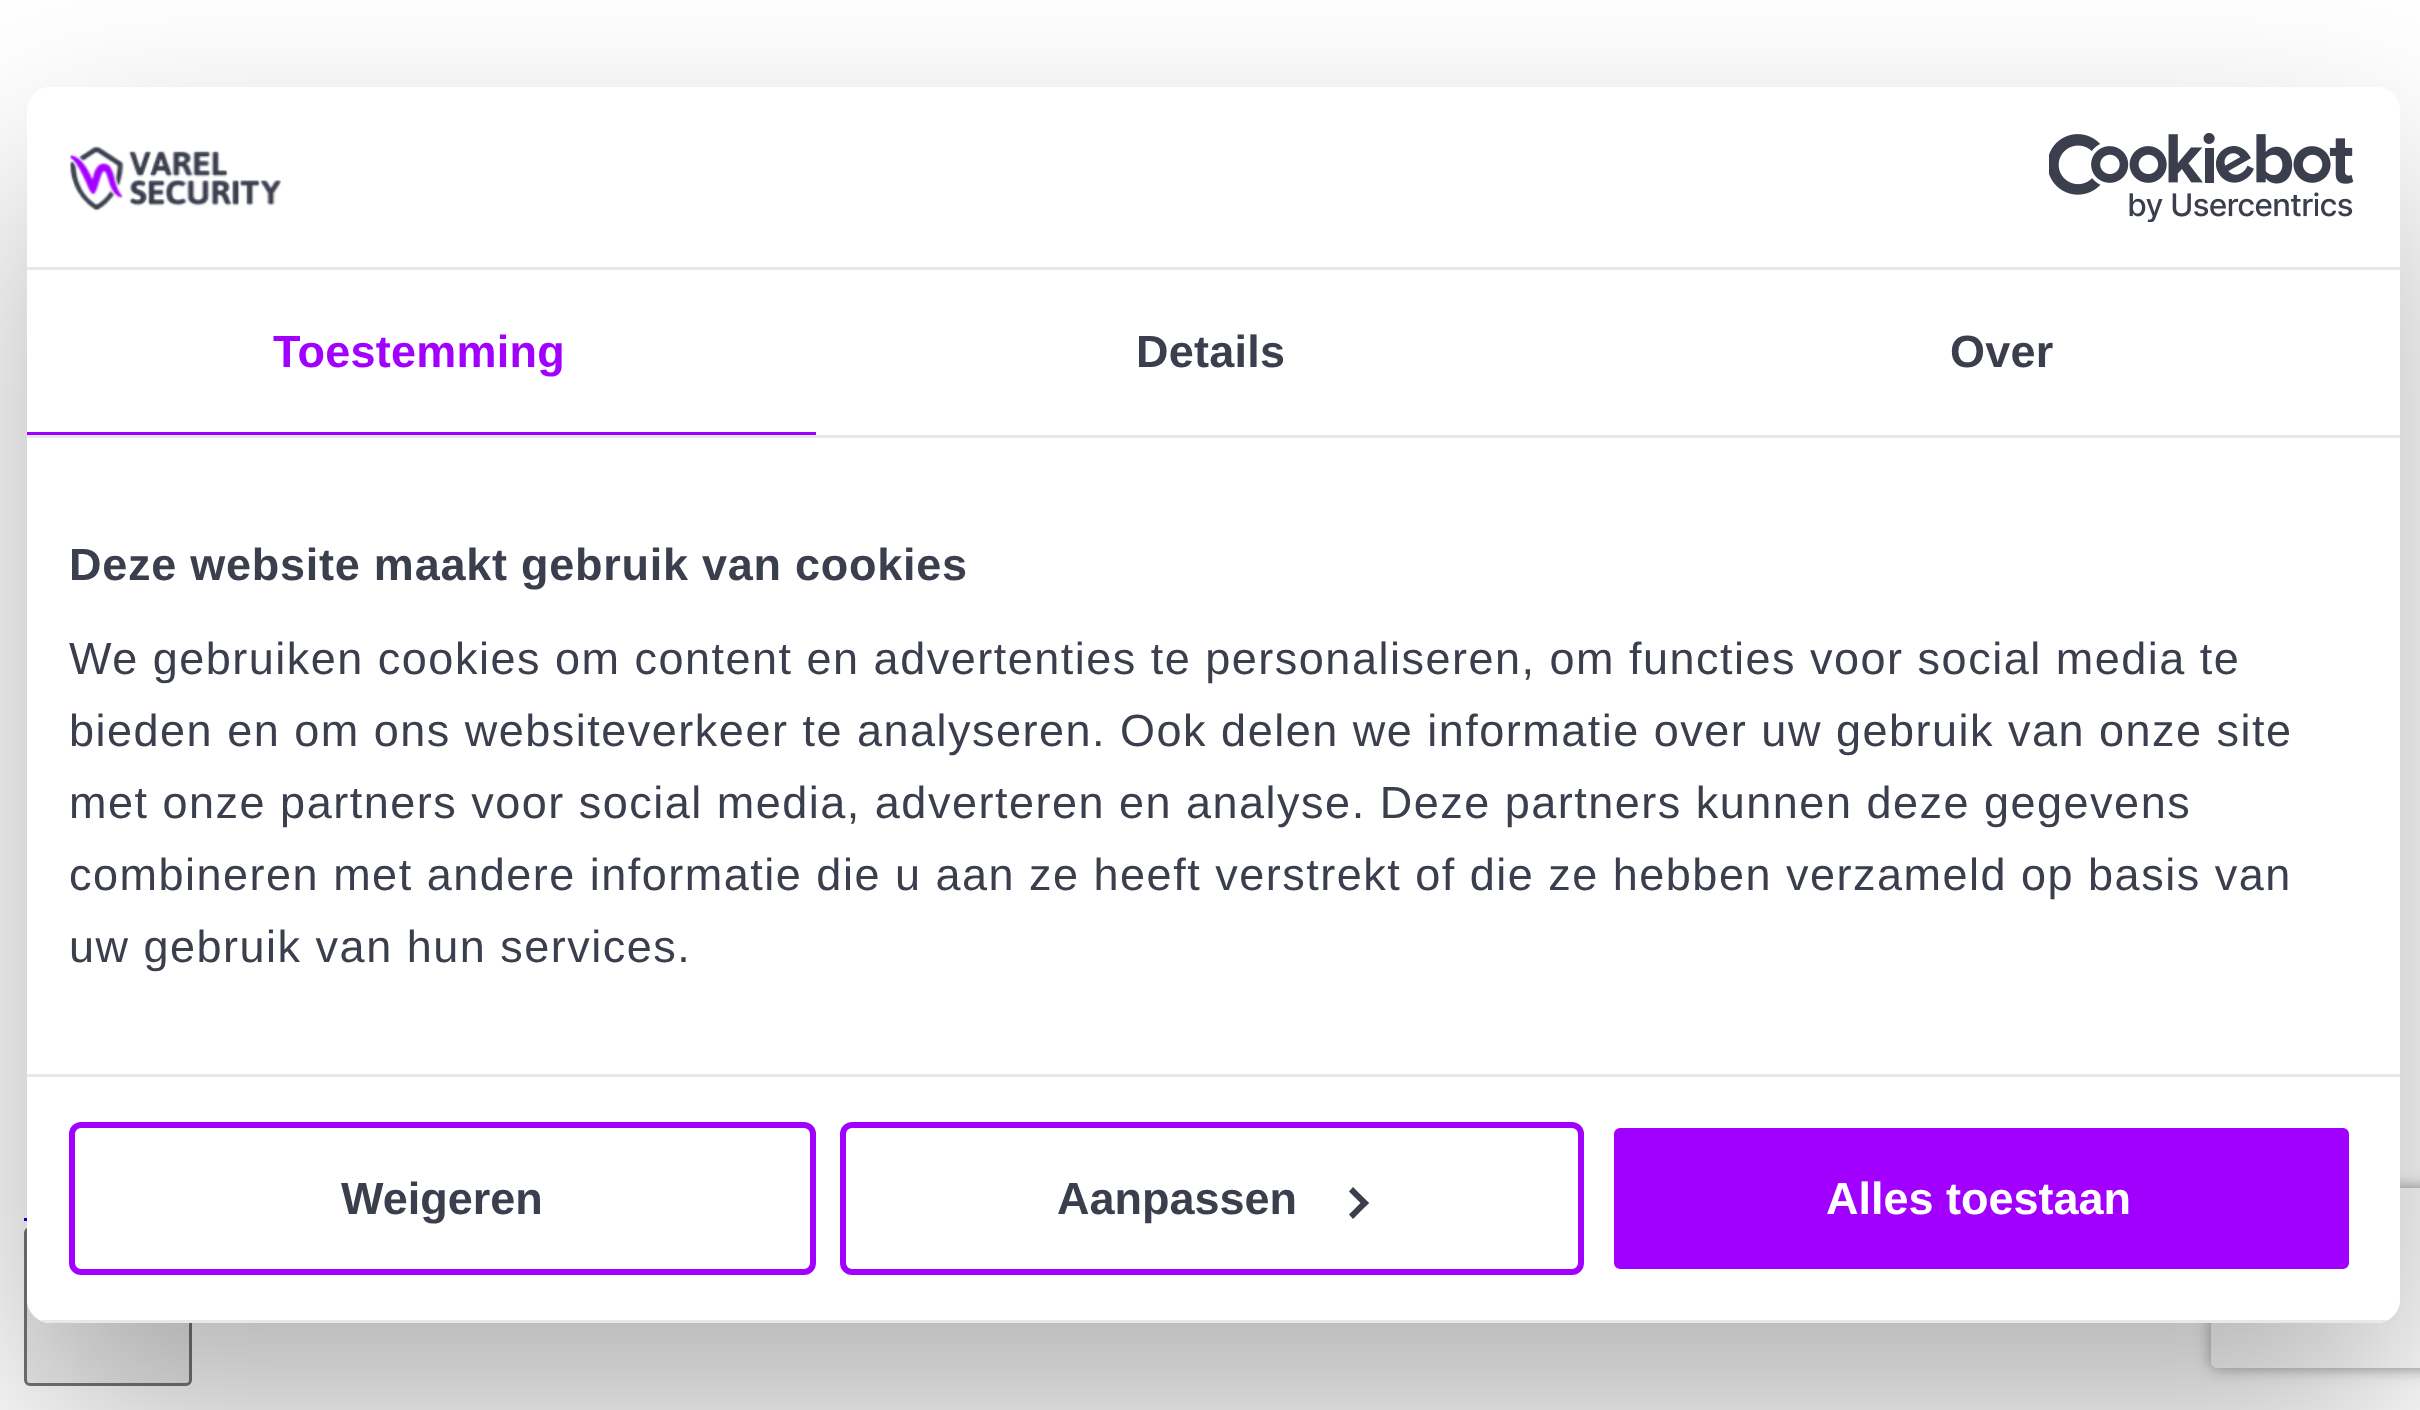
async function draw(canvas) {
	canvas.width = 2420;
	canvas.height = 1410;
	const c = canvas.getContext('2d');
	c.miterLimit = 4;
	c.fontKerning = 'normal';
	async function loadImage(src) {
		const img = new Image();
		img.src = src;
		await img.decode();
		return img;
	}

	c.fillStyle = '#fff';
	c.fillRect(0, 0, 2420, 1410);
	c.fillStyle = '#00e';
	c.fillRect(24, 1218, 3, 3);
	c.fillStyle = '#efefef';
	c.beginPath();
	c.roundRect(25.5, 1228.5, 165, 156, 4.5);
	c.fill();
	c.strokeStyle = '#767676';
	c.lineWidth = 3;
	c.stroke();
	c.save();
	c.beginPath();
	c.moveTo(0, 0);
	c.lineTo(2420, 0);
	c.lineTo(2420, 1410);
	c.lineTo(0, 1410);
	c.closePath();
	c.moveTo(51, 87);
	c.lineTo(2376, 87);
	c.bezierCurveTo(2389.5, 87, 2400, 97.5, 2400, 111);
	c.lineTo(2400, 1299);
	c.bezierCurveTo(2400, 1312.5, 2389.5, 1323, 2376, 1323);
	c.lineTo(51, 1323);
	c.bezierCurveTo(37.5, 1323, 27, 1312.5, 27, 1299);
	c.lineTo(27, 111);
	c.bezierCurveTo(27, 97.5, 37.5, 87, 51, 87);
	c.closePath();
	c.clip('evenodd');
	c.fillStyle = '#0000004d';
	c.filter = 'blur(102px)';
	c.beginPath();
	c.roundRect(27, 183, 2373, 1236, 24);
	c.fill();
	c.filter = 'none';
	c.restore();
	c.save();
	c.beginPath();
	c.moveTo(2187, 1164);
	c.lineTo(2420, 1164);
	c.lineTo(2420, 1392);
	c.lineTo(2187, 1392);
	c.closePath();
	c.moveTo(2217, 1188);
	c.lineTo(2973, 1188);
	c.bezierCurveTo(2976.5, 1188, 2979, 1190.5, 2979, 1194);
	c.lineTo(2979, 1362);
	c.bezierCurveTo(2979, 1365.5, 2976.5, 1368, 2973, 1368);
	c.lineTo(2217, 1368);
	c.bezierCurveTo(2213.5, 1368, 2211, 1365.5, 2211, 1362);
	c.lineTo(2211, 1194);
	c.bezierCurveTo(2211, 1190.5, 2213.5, 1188, 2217, 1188);
	c.closePath();
	c.clip('evenodd');
	c.fillStyle = '#808080';
	c.filter = 'blur(7.5px)';
	c.beginPath();
	c.roundRect(2211, 1188, 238, 180, 6);
	c.fill();
	c.filter = 'none';
	c.restore();
	c.fillStyle = '#fff';
	c.beginPath();
	c.roundRect(27, 87, 2373, 1236, 24);
	c.fill();
	c.fillStyle = '#e7e8ec';
	c.fillRect(27, 267, 2373, 3);
	c.drawImage(await loadImage('img1.png'), 70, 146, 211, 65);
	c.drawImage(await loadImage('img2.png'), 2049, 132, 305, 90);
	c.fillRect(27, 435, 2373, 3);
	c.fillStyle = '#a100ff';
	c.fillRect(27, 432, 789, 3);
	c.letterSpacing = '0.25px';
	c.font = 'bold 45px Liberation Sans';
	c.fillText('Toestemming', 273, 367);
	c.fillStyle = '#3a3e4d';
	c.fillText('Details', 1136, 367);
	c.fillText('Over', 1950, 367);
	c.fillStyle = '#e7e8ec';
	c.fillRect(27, 1074, 2373, 3);
	c.letterSpacing = '0.75px';
	c.fillStyle = '#3a3e4d';
	c.fillText('Deze website maakt gebruik van cookies', 69, 580);
	c.letterSpacing = '1.5px';
	c.font = '45px Liberation Sans';
	for (const [text, x, y] of [
		['We gebruiken cookies om content en advertenties te personaliseren, om functies voor social media te', 69, 674],
		['bieden en om ons websiteverkeer te analyseren. Ook delen we informatie over uw gebruik van onze site', 69, 746],
		['met onze partners voor social media, adverteren en analyse. Deze partners kunnen deze gegevens', 69, 818],
		['combineren met andere informatie die u aan ze heeft verstrekt of die ze hebben verzameld op basis van', 69, 890],
		['uw gebruik van hun services.', 69, 962],
	]) {
		c.fillText(text, x, y);
	}
	c.save();
	c.beginPath();
	c.roundRect(27, 87, 2373, 1236, 24);
	c.clip();
	c.fillStyle = '#e7e8ec';
	c.fillRect(39, 1320, 2349, 3);
	c.restore();
	c.beginPath();
	c.roundRect(72, 1125, 741, 147, 9);
	c.strokeStyle = '#a100ff';
	c.lineWidth = 6;
	c.stroke();
	c.letterSpacing = '0px';
	c.font = 'bold 45px Liberation Sans';
	c.fillText('Weigeren', 341, 1214);
	c.beginPath();
	c.roundRect(843, 1125, 738, 147, 9);
	c.stroke();
	c.fillText('Aanpassen', 1057, 1214);
	c.beginPath();
	c.moveTo(1353, 1187);
	c.lineTo(1369, 1203);
	c.lineTo(1364.5, 1207);
	c.lineTo(1349, 1191.5);
	c.closePath();
	c.fill();
	c.beginPath();
	c.moveTo(1364.5, 1199);
	c.lineTo(1369, 1203);
	c.lineTo(1353, 1219);
	c.lineTo(1349, 1214.5);
	c.closePath();
	c.fill();
	c.fillStyle = '#a100ff';
	c.beginPath();
	c.roundRect(1611, 1125, 741, 147, 9);
	c.fill();
	c.strokeStyle = '#fff';
	c.stroke();
	c.fillStyle = '#fff';
	c.fillText('Alles toestaan', 1826, 1214);
}

draw(document.querySelector('canvas'));
